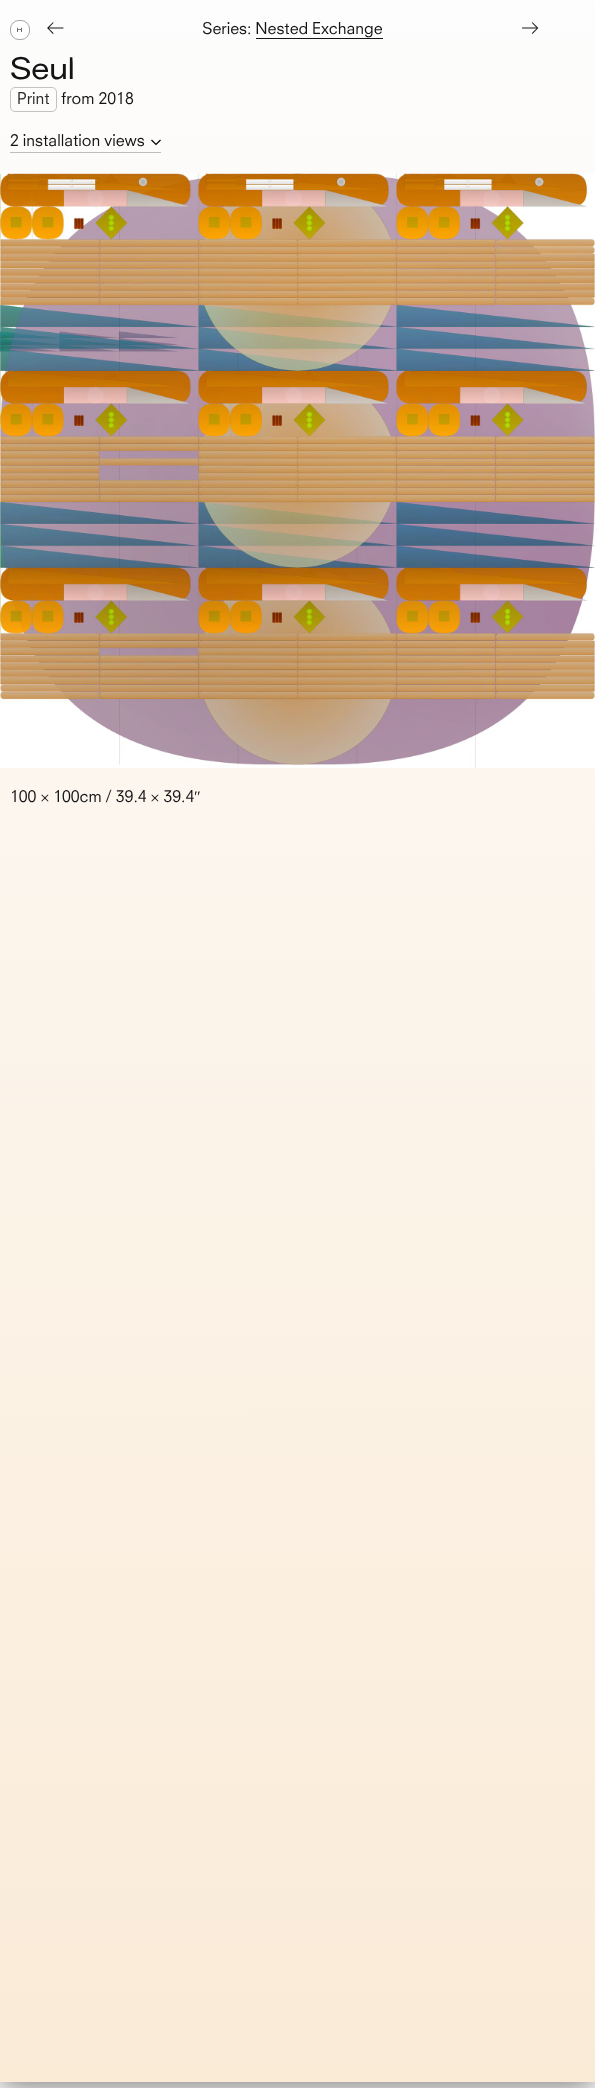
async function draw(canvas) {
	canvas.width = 595;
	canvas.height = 2088;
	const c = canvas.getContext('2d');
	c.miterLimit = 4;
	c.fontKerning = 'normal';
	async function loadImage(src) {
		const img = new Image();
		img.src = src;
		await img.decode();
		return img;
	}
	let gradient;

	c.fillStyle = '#fdfdfd';
	c.fillRect(0, 0, 595, 2088);
	c.fillStyle = '#00000080';
	c.filter = 'blur(15px)';
	c.beginPath();
	c.rect(0, -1, 595, 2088);
	c.fill();
	c.filter = 'none';
	gradient = c.createLinearGradient(297, -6, 298, 2082);
	gradient.addColorStop(0, '#fdfdfd');
	gradient.addColorStop(1, '#faebd7');
	c.fillStyle = gradient;
	c.fillRect(0, 0, 595, 2082);
	c.fillStyle = '#fff';
	c.beginPath();
	c.roundRect(10.5, 20.5, 19, 19, 8.5);
	c.fill();
	c.strokeStyle = '#a6a6a6';
	c.stroke();
	c.font = '6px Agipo';
	c.fillStyle = '#000';
	c.fillText('H', 17, 32);
	c.font = '16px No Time';
	c.fillStyle = '#141414';
	c.fillText('←', 46, 34);
	c.fillText('Series: Nested Exchange', 202, 34);
	c.fillRect(256, 38, 127, 1);
	c.fillText('→', 521, 34);
	c.font = '30px Agipo';
	c.fillText('Seul', 10, 79);
	c.beginPath();
	c.roundRect(10.5, 87.5, 46, 24, 4.5);
	c.strokeStyle = '#c3c2c1';
	c.stroke();
	c.font = '16px No Time';
	c.fillStyle = '#2b2b2b';
	c.fillText('Print', 17, 104);
	c.fillStyle = '#141414';
	c.fillText('from 2018', 61, 104);
	c.beginPath();
	c.moveTo(151.5, 140);
	c.lineTo(156, 144.5);
	c.lineTo(160.5, 140);
	c.strokeStyle = '#000';
	c.lineWidth = 1.2;
	c.stroke();
	c.fillStyle = '#bebdbc';
	c.fillRect(10, 152, 151, 1);
	c.fillStyle = '#141414';
	c.fillText('2 installation views', 10, 146);
	c.drawImage(await loadImage('img1.png'), 0, 173, 595, 595);
	c.fillText('100 × 100cm / 39.4 × 39.4', 10, 802);
	c.font = '16px Liberation Serif';
	c.fillText('″', 194, 802);
}

draw(document.querySelector('canvas'));
